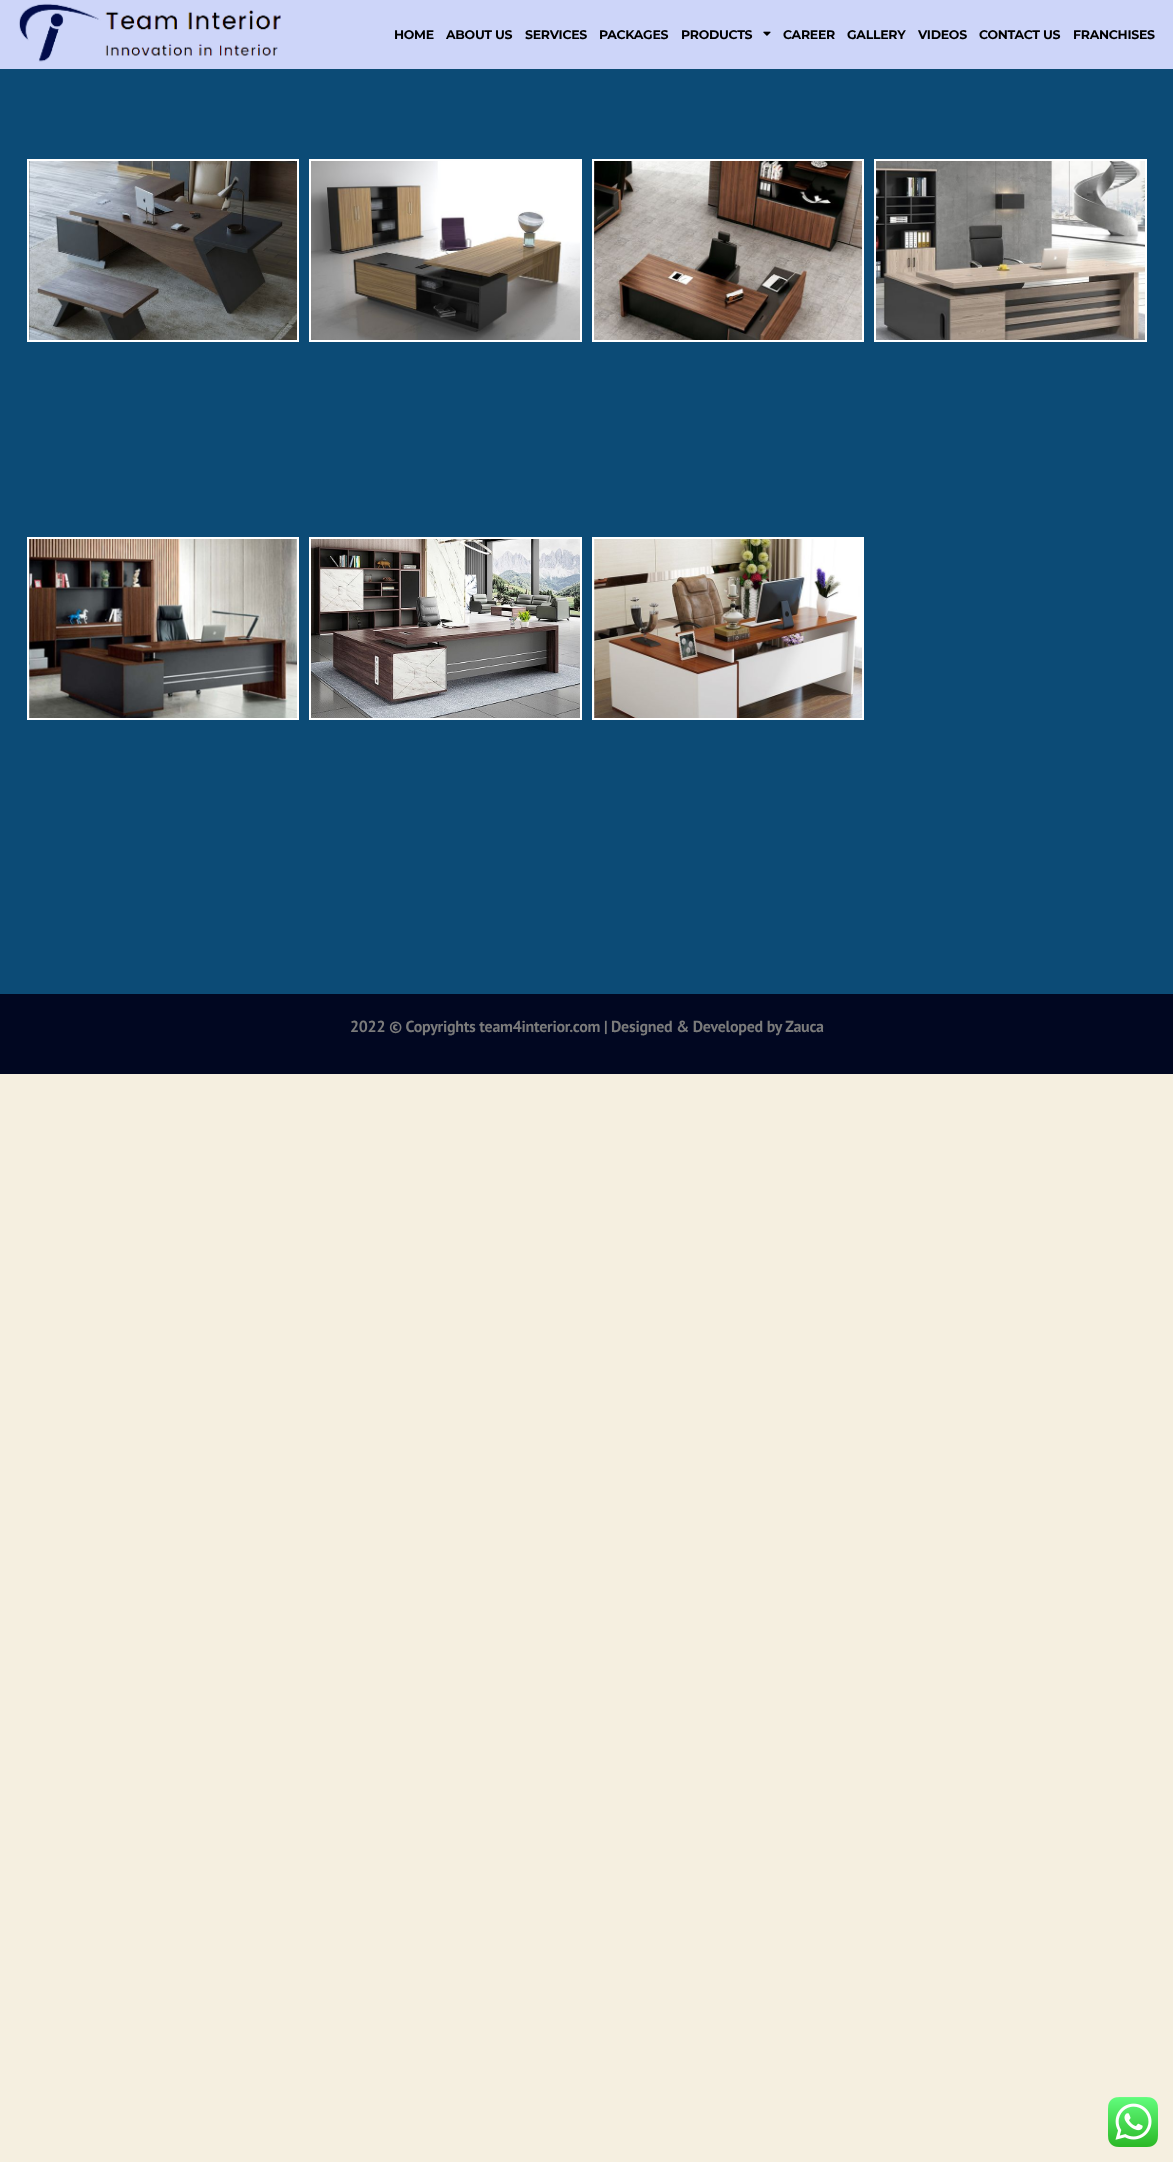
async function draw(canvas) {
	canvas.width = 1173;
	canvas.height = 2162;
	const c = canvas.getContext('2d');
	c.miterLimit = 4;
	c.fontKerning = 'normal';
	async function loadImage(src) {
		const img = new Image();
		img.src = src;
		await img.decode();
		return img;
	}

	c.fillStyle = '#f5efe0';
	c.fillRect(0, 0, 1173, 2162);
	c.fillStyle = '#cdd5f9';
	c.fillRect(0, 0, 1173, 69);
	c.drawImage(await loadImage('img1.png'), 19, 3, 262, 59);
	c.letterSpacing = '-0.27px';
	c.font = 'bold 12.5px Montserrat';
	c.fillStyle = '#000';
	for (const [text, x, y] of [
		['HOME', 394, 39],
		['ABOUT US', 446, 39],
		['SERVICES', 525, 39],
		['PACKAGES', 599, 39],
		['PRODUCTS', 681, 39],
	]) {
		c.fillText(text, x, y);
	}
	c.drawImage(await loadImage('img2.png'), 763, 31, 8, 5);
	for (const [text, x, y] of [
		['CAREER', 783, 39],
		['GALLERY', 847, 39],
		['VIDEOS', 918, 39],
		['CONTACT US', 979, 39],
		['FRANCHISES', 1073, 39],
	]) {
		c.fillText(text, x, y);
	}
	c.fillStyle = '#0c4b76';
	c.fillRect(0, 69, 1173, 925);
	c.strokeStyle = '#fff';
	c.lineWidth = 2;
	c.strokeRect(28, 160, 270, 181);
	c.drawImage(await loadImage('img3.png'), 29, 161, 268, 179);
	c.strokeRect(310, 160, 271, 181);
	c.drawImage(await loadImage('img4.png'), 311, 161, 269, 179);
	c.strokeRect(593, 160, 270, 181);
	c.drawImage(await loadImage('img5.png'), 594, 161, 268, 179);
	c.strokeRect(875, 160, 271, 181);
	c.drawImage(await loadImage('img6.png'), 876, 161, 269, 179);
	c.strokeRect(28, 538, 270, 181);
	c.drawImage(await loadImage('img7.png'), 29, 539, 268, 179);
	c.strokeRect(310, 538, 271, 181);
	c.drawImage(await loadImage('img8.png'), 311, 539, 269, 179);
	c.strokeRect(593, 538, 270, 181);
	c.drawImage(await loadImage('img9.png'), 594, 539, 268, 179);
	c.fillStyle = '#010721';
	c.fillRect(0, 994, 1173, 80);
	c.font = 'bold 16px PT Sans';
	c.fillStyle = '#7a7a7a';
	c.fillText('2022 © Copyrights team4interior.com | Designed & Developed by Zauca', 350, 1032);
	c.drawImage(await loadImage('img10.png'), 1108, 2097, 50, 50);
}

draw(document.querySelector('canvas'));
